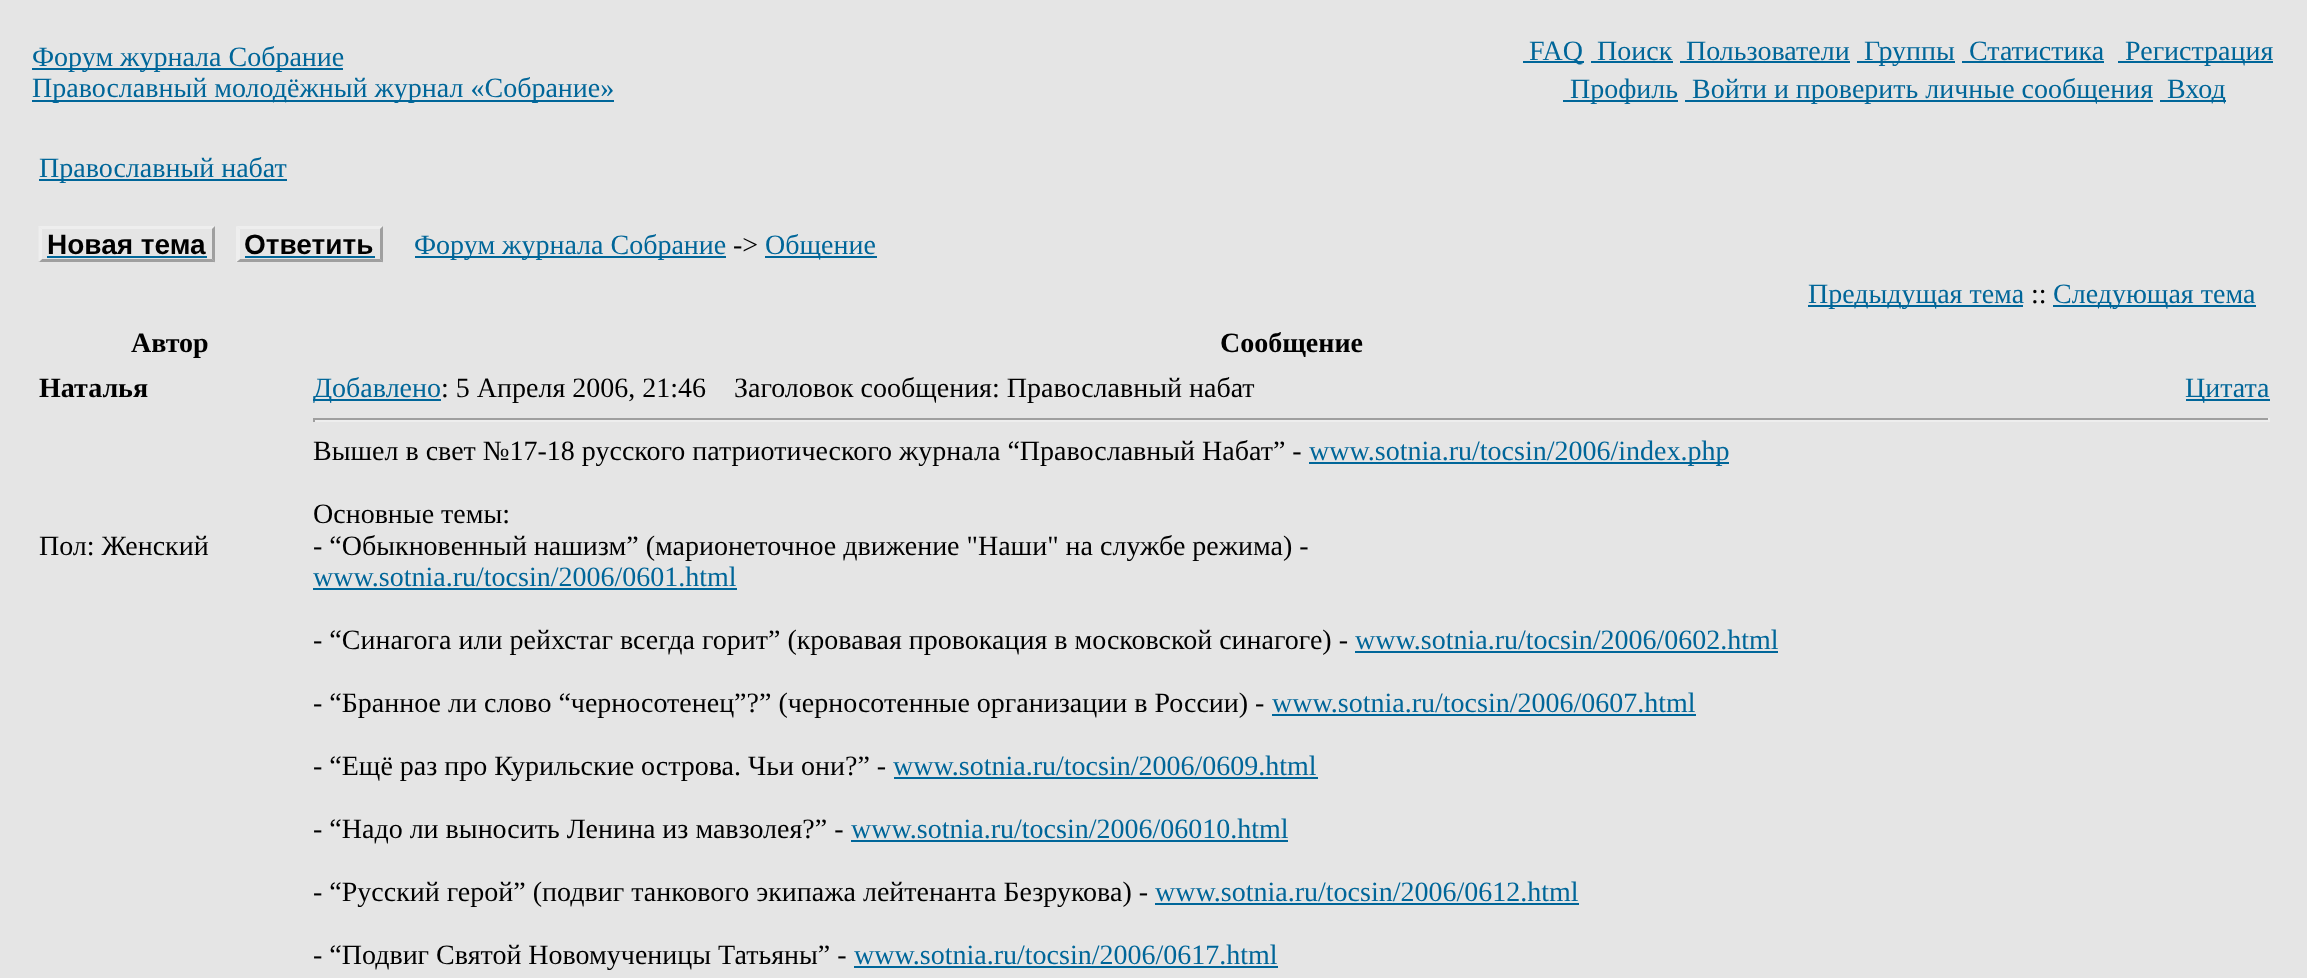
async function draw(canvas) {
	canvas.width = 2307;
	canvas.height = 978;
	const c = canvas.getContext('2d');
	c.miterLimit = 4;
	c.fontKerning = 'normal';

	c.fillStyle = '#e5e5e5';
	c.fillRect(0, 0, 2307, 978);
	c.fillStyle = '#069';
	c.fillRect(32, 68, 311, 2);
	c.font = '28px Liberation Serif';
	c.fillText('Форум журнала Собрание', 32, 66);
	c.fillRect(32, 100, 582, 2);
	c.fillText('Православный молодёжный журнал «Собрание»', 32, 97);
	c.fillRect(1523, 61, 61, 2);
	c.fillText('FAQ', 1529, 60);
	c.fillText('Поиск', 1597, 60);
	c.fillRect(1591, 61, 82, 2);
	c.fillText('Пользователи', 1686, 60);
	c.fillRect(1680, 61, 170, 2);
	c.fillRect(1857, 61, 98, 2);
	c.fillText('Группы', 1864, 60);
	c.fillText('Статистика', 1969, 60);
	c.fillRect(1962, 61, 142, 2);
	c.fillRect(2118, 61, 155, 2);
	c.fillText('Регистрация', 2125, 60);
	c.fillRect(1563, 100, 115, 2);
	c.fillText('Профиль', 1570, 98);
	c.fillRect(1685, 100, 468, 2);
	c.fillText('Войти и проверить личные сообщения', 1692, 98);
	c.fillRect(2160, 100, 66, 2);
	c.fillText('Вход', 2167, 98);
	c.fillRect(39, 179, 248, 2);
	c.fillText('Православный набат', 39, 177);
	c.font = 'bold 28px Liberation Sans';
	c.fillStyle = '#000';
	c.fillText('Новая тема', 47, 254);
	c.fillStyle = '#eee';
	c.beginPath();
	c.moveTo(38, 226);
	c.lineTo(215, 226);
	c.lineTo(212, 229);
	c.lineTo(42, 229);
	c.closePath();
	c.fill();
	c.fillStyle = '#9f9f9f';
	c.beginPath();
	c.moveTo(215, 226);
	c.lineTo(215, 262.5);
	c.lineTo(212, 259);
	c.lineTo(212, 229);
	c.closePath();
	c.fill();
	c.beginPath();
	c.moveTo(215, 262);
	c.lineTo(38, 262);
	c.lineTo(42, 259);
	c.lineTo(212, 259);
	c.closePath();
	c.fill();
	c.fillStyle = '#eee';
	c.beginPath();
	c.moveTo(38.5, 262.5);
	c.lineTo(38.5, 226);
	c.lineTo(42, 229);
	c.lineTo(42, 259);
	c.closePath();
	c.fill();
	c.fillStyle = '#069';
	c.fillRect(47, 256, 160, 2);
	c.fillStyle = '#000';
	c.fillText('Ответить', 244, 254);
	c.fillStyle = '#eee';
	c.beginPath();
	c.moveTo(236, 226);
	c.lineTo(383, 226);
	c.lineTo(380, 229);
	c.lineTo(240, 229);
	c.closePath();
	c.fill();
	c.fillStyle = '#9f9f9f';
	c.beginPath();
	c.moveTo(383, 226);
	c.lineTo(383, 262.5);
	c.lineTo(380, 259);
	c.lineTo(380, 229);
	c.closePath();
	c.fill();
	c.beginPath();
	c.moveTo(383, 262);
	c.lineTo(236, 262);
	c.lineTo(240, 259);
	c.lineTo(380, 259);
	c.closePath();
	c.fill();
	c.fillStyle = '#eee';
	c.beginPath();
	c.moveTo(236, 262.5);
	c.lineTo(236, 226);
	c.lineTo(240, 229);
	c.lineTo(240, 259);
	c.closePath();
	c.fill();
	c.fillStyle = '#069';
	c.fillRect(245, 256, 130, 2);
	c.fillRect(415, 256, 311, 2);
	c.font = '28px Liberation Serif';
	c.fillText('Форум журнала Собрание', 414, 254);
	c.fillStyle = '#000';
	c.fillText('->', 733, 254);
	c.fillStyle = '#069';
	c.fillRect(765, 256, 112, 2);
	c.fillText('Общение', 765, 254);
	c.fillRect(1808, 305, 215, 2);
	c.fillText('Предыдущая тема', 1808, 303);
	c.fillStyle = '#000';
	c.fillText('::', 2031, 303);
	c.fillStyle = '#069';
	c.fillRect(2053, 305, 203, 2);
	c.fillText('Следующая тема', 2053, 303);
	c.font = 'bold 28px Liberation Serif';
	c.fillStyle = '#000';
	for (const [text, x, y] of [
		['Автор', 131, 352],
		['Сообщение', 1220, 352],
		['Наталья', 39, 397],
	]) {
		c.fillText(text, x, y);
	}
	c.font = '28px Liberation Serif';
	c.fillText('Пол: Женский', 39, 555);
	c.fillStyle = '#069';
	c.fillRect(313, 399, 128, 2);
	c.fillText('Добавлено', 313, 397);
	c.fillStyle = '#000';
	c.fillText(': 5 Апреля 2006, 21:46', 441, 397);
	c.fillText('Заголовок сообщения: Православный набат', 734, 397);
	c.fillStyle = '#069';
	c.fillRect(2186, 399, 84, 2);
	c.fillText('Цитата', 2185, 397);
	for (const [x, y, w, h, color] of [
		[313, 418, 1957, 2, '#9f9f9f'],
		[2268, 418, 2, 4, '#eee'],
		[313, 420, 1957, 2, '#eee'],
		[313, 418, 2, 4, '#9f9f9f'],
	]) {
		c.fillStyle = color;
		c.fillRect(x, y, w, h);
	}
	c.fillStyle = '#000';
	c.fillText('Вышел в свет №17-18 русского патриотического журнала “Православный Набат” -', 313, 460);
	c.fillStyle = '#069';
	c.fillRect(1309, 462, 420, 2);
	c.fillText('www.sotnia.ru/tocsin/2006/index.php', 1309, 460);
	c.fillStyle = '#000';
	c.fillText('Основные темы:', 313, 523);
	c.fillText('- “Обыкновенный нашизм” (марионеточное движение "Наши" на службе режима) -', 313, 555);
	c.fillStyle = '#069';
	c.fillText('www.sotnia.ru/tocsin/2006/0601.html', 313, 586);
	c.fillRect(313, 588, 424, 2);
	c.fillStyle = '#000';
	c.fillText('- “Синагога или рейхстаг всегда горит” (кровавая провокация в московской синагоге) -', 313, 649);
	c.fillStyle = '#069';
	c.fillText('www.sotnia.ru/tocsin/2006/0602.html', 1355, 649);
	c.fillRect(1355, 651, 423, 2);
	c.fillStyle = '#000';
	c.fillText('- “Бранное ли слово “черносотенец”?” (черносотенные организации в России) -', 313, 712);
	c.fillStyle = '#069';
	c.fillText('www.sotnia.ru/tocsin/2006/0607.html', 1272, 712);
	c.fillRect(1272, 714, 424, 2);
	c.fillStyle = '#000';
	c.fillText('- “Ещё раз про Курильские острова. Чьи они?” -', 313, 775);
	c.fillStyle = '#069';
	c.fillText('www.sotnia.ru/tocsin/2006/0609.html', 893, 775);
	c.fillRect(894, 777, 424, 2);
	c.fillStyle = '#000';
	c.fillText('- “Надо ли выносить Ленина из мавзолея?” -', 313, 838);
	c.fillStyle = '#069';
	c.fillText('www.sotnia.ru/tocsin/2006/06010.html', 851, 838);
	c.fillRect(851, 840, 437, 2);
	c.fillStyle = '#000';
	c.fillText('- “Русский герой” (подвиг танкового экипажа лейтенанта Безрукова) -', 313, 901);
	c.fillStyle = '#069';
	c.fillText('www.sotnia.ru/tocsin/2006/0612.html', 1155, 901);
	c.fillRect(1155, 903, 424, 2);
	c.fillStyle = '#000';
	c.fillText('- “Подвиг Святой Новомученицы Татьяны” -', 313, 964);
	c.fillStyle = '#069';
	c.fillText('www.sotnia.ru/tocsin/2006/0617.html', 854, 964);
	c.fillRect(854, 966, 424, 2);
}

draw(document.querySelector('canvas'));
